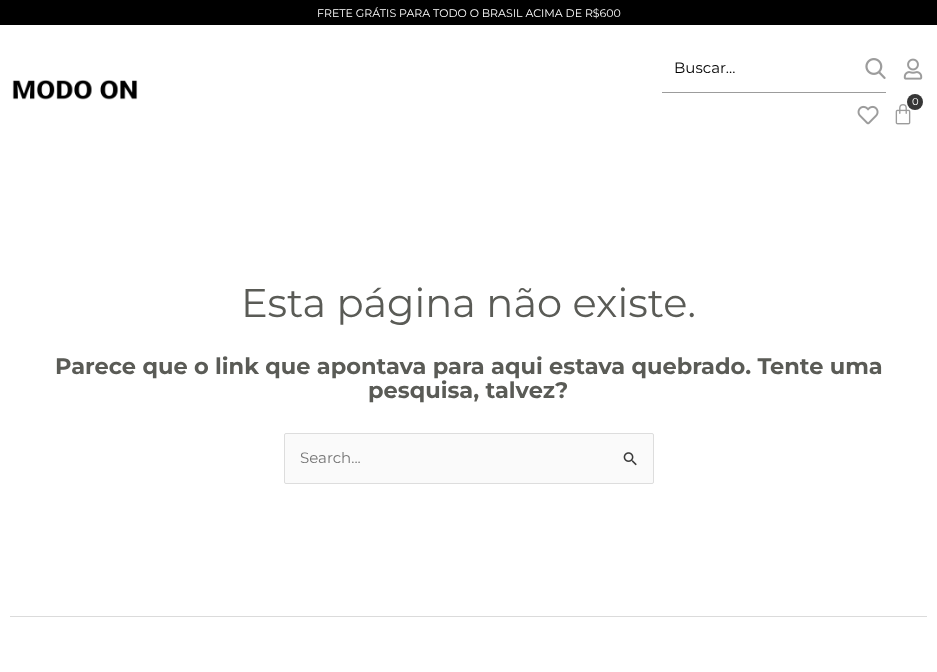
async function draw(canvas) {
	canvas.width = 937;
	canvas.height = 672;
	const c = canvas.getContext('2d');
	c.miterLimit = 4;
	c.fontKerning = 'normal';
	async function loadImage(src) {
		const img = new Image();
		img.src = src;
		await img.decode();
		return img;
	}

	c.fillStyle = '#fff';
	c.fillRect(0, 0, 937, 672);
	c.fillStyle = '#000';
	c.fillRect(0, 0, 937, 25);
	c.font = '100 11px Montserrat';
	c.fillStyle = '#fff';
	c.fillText('FRETE GRÁTIS PARA TODO O BRASIL ACIMA DE R$600', 317, 17);
	c.drawImage(await loadImage('img1.png'), 12, 80, 126, 20);
	c.fillStyle = '#9c9c9c';
	c.fillRect(662, 92, 224, 1);
	c.font = '100 15px Montserrat';
	c.fillStyle = '#000';
	c.fillText('Buscar...', 674, 73);
	c.drawImage(await loadImage('img2.png'), 865, 58, 21, 21);
	c.drawImage(await loadImage('img3.png'), 903, 58, 20, 22);
	c.drawImage(await loadImage('img4.png'), 895, 104, 16, 21);
	c.fillStyle = '#363636';
	c.beginPath();
	c.arc(915, 102, 8, 0, 2 * Math.PI);
	c.fill();
	c.font = '100 10px Montserrat';
	c.fillStyle = '#fff';
	c.fillText('0', 912, 105);
	c.drawImage(await loadImage('img5.png'), 857, 105, 22, 20);
	c.font = '100 40px Montserrat';
	c.fillStyle = '#5a5b56';
	c.fillText('Esta página não existe.', 241, 317);
	c.font = '100 22.5px "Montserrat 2"';
	c.fillText('Parece que o link que apontava para aqui estava quebrado. Tente uma', 55, 374);
	c.fillText('pesquisa, talvez?', 368, 398);
	c.fillStyle = '#fafafa';
	c.beginPath();
	c.roundRect(284.5, 433.5, 369, 50, 1.5);
	c.fill();
	c.strokeStyle = '#ddd';
	c.stroke();
	c.font = '100 15px Montserrat';
	c.fillStyle = '#757575';
	c.fillText('Search...', 300, 463);
	c.drawImage(await loadImage('img6.png'), 623, 452, 14, 14);
	c.fillStyle = '#dbdbdb';
	c.fillRect(10, 616, 917, 1);
}

draw(document.querySelector('canvas'));
